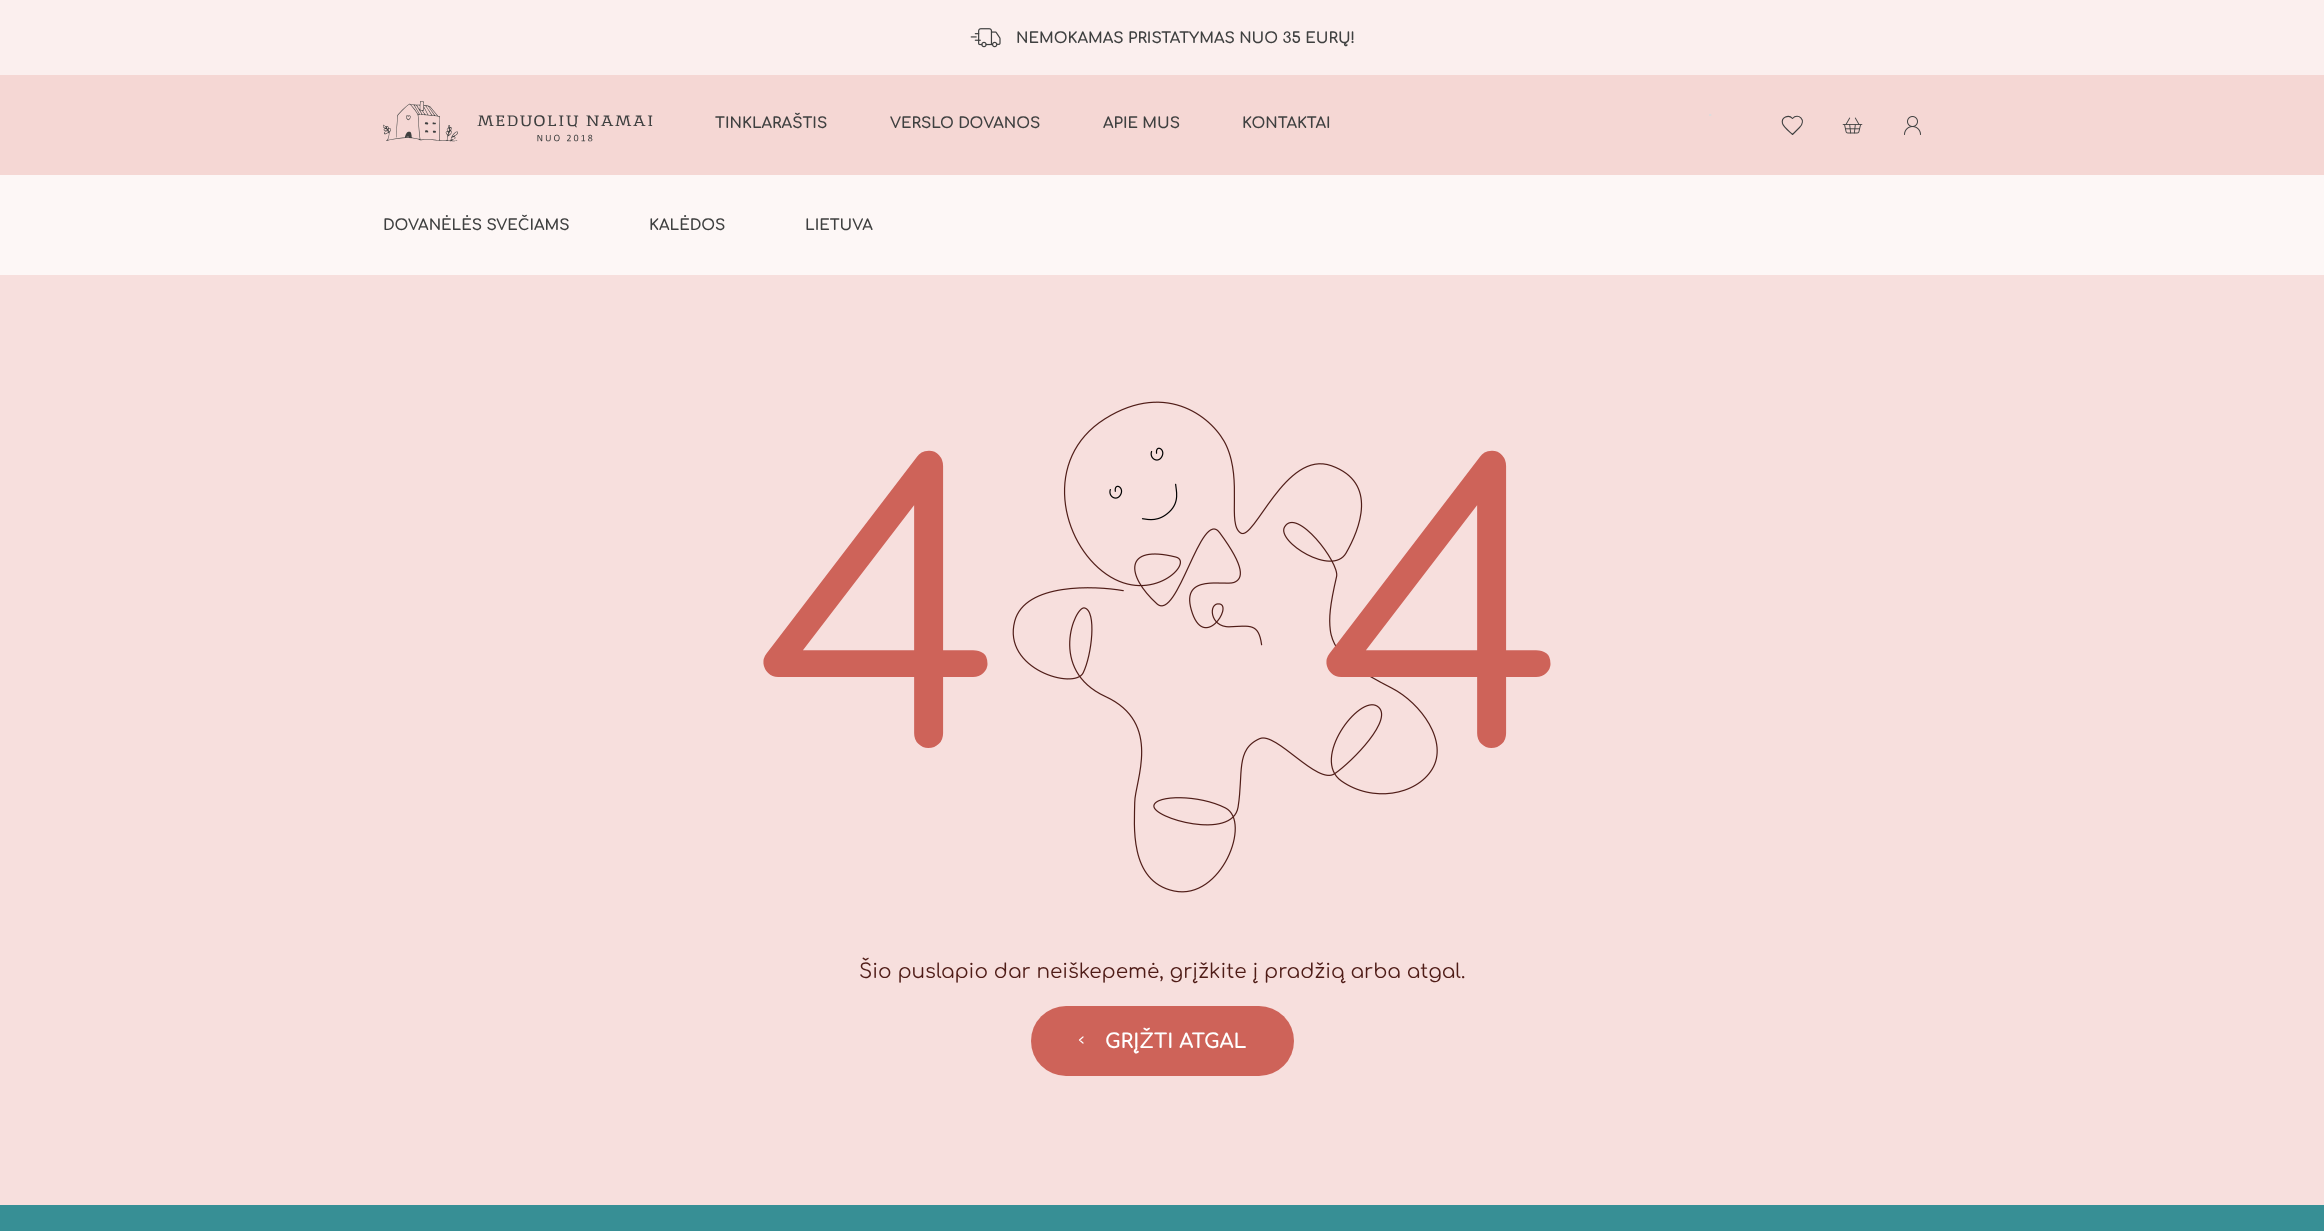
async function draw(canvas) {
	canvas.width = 2324;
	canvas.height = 1231;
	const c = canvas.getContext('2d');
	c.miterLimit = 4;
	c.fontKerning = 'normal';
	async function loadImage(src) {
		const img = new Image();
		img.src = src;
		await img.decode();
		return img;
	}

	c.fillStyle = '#fbefee';
	c.fillRect(0, 0, 2324, 1231);
	c.drawImage(await loadImage('img1.png'), 970, 28, 31, 20);
	c.font = 'bold 15px Comfortaa';
	c.fillStyle = '#3f4040';
	c.fillText('NEMOKAMAS PRISTATYMAS NUO 35 EURŲ!', 1016, 43);
	c.fillStyle = '#f5d7d4';
	c.fillRect(0, 75, 2324, 100);
	c.drawImage(await loadImage('img2.png'), 383, 101, 270, 41);
	c.fillStyle = '#3f4040';
	for (const [text, x, y] of [
		['TINKLARAŠTIS', 715, 128],
		['VERSLO DOVANOS', 890, 128],
		['APIE MUS', 1103, 128],
		['KONTAKTAI', 1242, 128],
	]) {
		c.fillText(text, x, y);
	}
	c.beginPath();
	c.moveTo(1710, 115);
	c.lineTo(1710.5, 115);
	c.strokeStyle = '#ddd';
	c.lineWidth = 2;
	c.lineCap = 'round';
	c.stroke();
	c.beginPath();
	c.moveTo(1799.5, 127.5);
	c.bezierCurveTo(1807, 120, 1798, 112.5, 1792.5, 118.5);
	c.bezierCurveTo(1788.5, 114, 1781, 117.5, 1782.5, 123.5);
	c.bezierCurveTo(1783.5, 127, 1790, 132, 1792.5, 134.5);
	c.closePath();
	c.strokeStyle = '#3f4040';
	c.lineWidth = 1.1;
	c.lineJoin = 'round';
	c.stroke();
	c.drawImage(await loadImage('img3.png'), 1842, 117, 21, 17);
	c.drawImage(await loadImage('img4.png'), 1904, 116, 17, 19);
	c.fillStyle = '#fdf7f6';
	c.fillRect(0, 175, 2324, 100);
	c.fillStyle = '#3f4040';
	for (const [text, x, y] of [
		['DOVANĖLĖS SVEČIAMS', 383, 230],
		['KALĖDOS', 649, 230],
		['LIETUVA', 805, 230],
	]) {
		c.fillText(text, x, y);
	}
	c.fillStyle = '#f7dfdd';
	c.fillRect(0, 275, 2324, 930);
	c.font = '380px Comfortaa';
	c.fillStyle = '#ce6359';
	c.fillText('4', 758, 748);
	c.drawImage(await loadImage('img5.png'), 1012, 401, 426, 492);
	c.fillText('4', 1321, 748);
	c.font = '20px Comfortaa';
	c.fillStyle = '#4f1c17';
	c.fillText('Šio puslapio dar neiškepemė, grįžkite į pradžią arba atgal.', 859, 978);
	c.fillStyle = '#ce6359';
	c.beginPath();
	c.roundRect(1031, 1006, 263, 70, 35);
	c.fill();
	c.font = 'bold 20px Comfortaa';
	c.fillStyle = '#fff';
	c.fillText('GRĮŽTI ATGAL', 1105, 1048);
	c.beginPath();
	c.moveTo(1083, 1037);
	c.lineTo(1079.5, 1040);
	c.lineTo(1083, 1043);
	c.strokeStyle = '#fff';
	c.lineWidth = 1.2;
	c.stroke();
	c.fillStyle = '#378f95';
	c.fillRect(0, 1205, 2324, 26);
}

draw(document.querySelector('canvas'));
